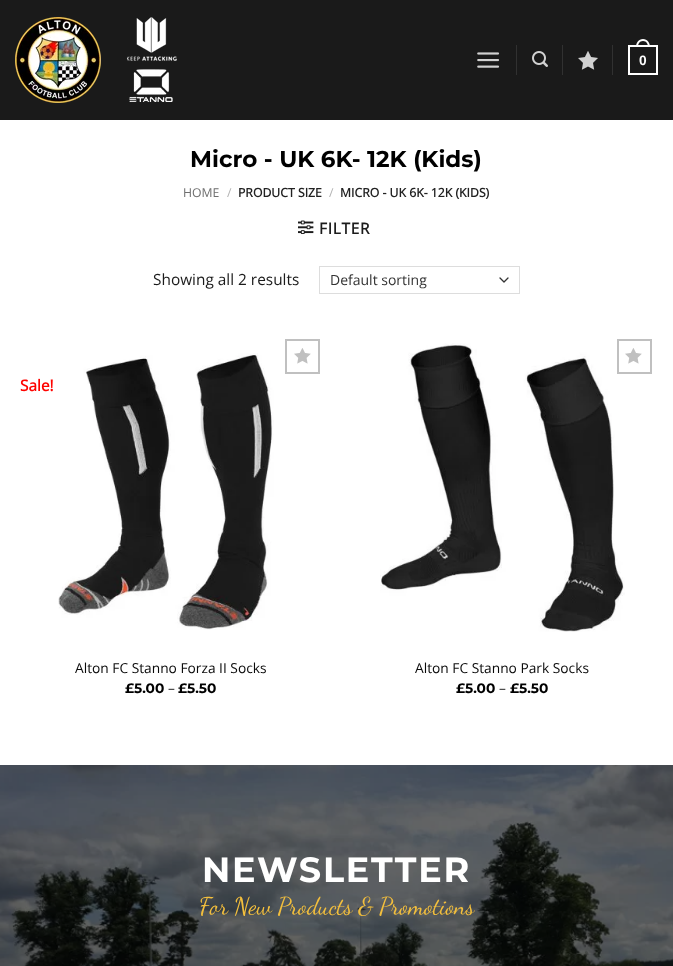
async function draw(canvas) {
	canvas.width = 673;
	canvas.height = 966;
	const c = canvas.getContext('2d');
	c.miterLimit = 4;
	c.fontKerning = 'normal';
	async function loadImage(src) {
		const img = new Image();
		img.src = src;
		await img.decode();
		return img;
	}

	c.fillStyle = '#fff';
	c.fillRect(0, 0, 673, 966);
	c.fillStyle = '#1a1a1a';
	c.fillRect(0, 0, 673, 120);
	c.drawImage(await loadImage('img1.png'), 15, 17, 162, 86);
	c.drawImage(await loadImage('img2.png'), 477, 52, 23, 16);
	c.fillStyle = '#313131';
	c.fillRect(516, 45, 1, 30);
	c.drawImage(await loadImage('img3.png'), 532, 51, 16, 16);
	c.fillRect(562, 45, 1, 30);
	c.drawImage(await loadImage('img4.png'), 578, 51, 20, 19);
	c.fillRect(612, 45, 1, 30);
	c.strokeStyle = '#fff';
	c.lineWidth = 2;
	c.strokeRect(629, 46, 28, 28);
	c.fillStyle = '#fff';
	c.beginPath();
	c.moveTo(643, 39);
	c.bezierCurveTo(647.5, 39, 650, 43, 650, 47);
	c.lineTo(636, 47);
	c.bezierCurveTo(636, 43, 638.5, 39, 643, 39);
	c.closePath();
	c.moveTo(643, 41);
	c.bezierCurveTo(646.5, 41, 648, 44, 648, 47);
	c.lineTo(638, 47);
	c.bezierCurveTo(638, 44, 639.5, 41, 643, 41);
	c.closePath();
	c.fill('evenodd');
	c.font = 'bold 13.75px Liberation Sans';
	c.fillText('0', 639, 65);
	c.font = 'bold 23px Montserrat';
	c.fillStyle = '#000';
	c.fillText('Micro - UK 6K- 12K (Kids)', 190, 167);
	c.font = '12.25px Open Sans';
	c.fillStyle = '#6e6e6e';
	c.fillText('HOME', 183, 197);
	c.fillStyle = '#b2b2b2';
	c.fillText('/', 227, 197);
	c.font = 'bold 12.25px Open Sans';
	c.fillStyle = '#222';
	c.fillText('PRODUCT SIZE', 238, 197);
	c.font = '12.25px Open Sans';
	c.fillStyle = '#b2b2b2';
	c.fillText('/', 329, 197);
	c.font = 'bold 12.25px Open Sans';
	c.fillStyle = '#222';
	c.fillText('MICRO - UK 6K- 12K (KIDS)', 340, 197);
	c.drawImage(await loadImage('img5.png'), 298, 220, 16, 14);
	c.letterSpacing = '0.75px';
	c.font = 'bold 15.4px Open Sans';
	c.fillStyle = '#1b1b1b';
	c.fillText('FILTER', 319, 234);
	c.letterSpacing = '0px';
	c.font = '15.4px Open Sans';
	c.fillText('Showing all 2 results', 153, 285);
	c.beginPath();
	c.moveTo(500, 278);
	c.lineTo(504, 282);
	c.lineTo(508, 278);
	c.strokeStyle = '#333';
	c.lineWidth = 1.3;
	c.lineCap = 'round';
	c.lineJoin = 'round';
	c.stroke();
	c.strokeStyle = '#ddd';
	c.lineWidth = 1;
	c.lineJoin = 'miter';
	c.strokeRect(319.5, 266.5, 200, 27);
	c.font = '14px Open Sans';
	c.fillStyle = '#333';
	c.fillText('Default sorting', 330, 285);
	c.font = 'bold 15.4px Open Sans';
	c.fillStyle = '#fe0300';
	c.fillText('Sale!', 20, 391);
	c.drawImage(await loadImage('img6.png'), 58, 353, 216, 277);
	c.strokeStyle = '#c0c0c0';
	c.lineWidth = 2;
	c.strokeRect(286, 340, 33, 33);
	c.drawImage(await loadImage('img7.png'), 294, 348, 17, 16);
	c.font = '13.75px Open Sans';
	c.fillStyle = '#0a0a0a';
	c.fillText('Alton FC Stanno Forza II Socks', 75, 673);
	c.font = 'bold 13.75px Montserrat';
	c.fillStyle = '#000';
	c.fillText('£5.00', 125, 693);
	c.font = '13.75px Open Sans';
	c.fillStyle = '#1b1b1b';
	c.fillText('–', 168, 693);
	c.font = 'bold 13.75px Montserrat';
	c.fillStyle = '#000';
	c.fillText('£5.50', 178, 693);
	c.drawImage(await loadImage('img8.png'), 380, 343, 245, 289);
	c.strokeRect(618, 340, 33, 33);
	c.drawImage(await loadImage('img7.png'), 625, 348, 17, 16);
	c.font = '13.75px Open Sans';
	c.fillStyle = '#0a0a0a';
	c.fillText('Alton FC Stanno Park Socks', 415, 673);
	c.font = 'bold 13.75px Montserrat';
	c.fillStyle = '#000';
	c.fillText('£5.00', 456, 693);
	c.font = '13.75px Open Sans';
	c.fillStyle = '#1b1b1b';
	c.fillText('–', 499, 693);
	c.font = 'bold 13.75px Montserrat';
	c.fillStyle = '#000';
	c.fillText('£5.50', 510, 693);
	c.drawImage(await loadImage('img9.png'), 0, 765, 673, 201);
	c.letterSpacing = '1.75px';
	c.font = 'bold 35px Montserrat';
	c.fillStyle = '#fff';
	c.fillText('NEWSLETTER', 202, 882);
	c.letterSpacing = '0px';
	c.wordSpacing = '-0.5px';
	c.font = '24.25px Dancing Script';
	c.fillStyle = '#f3bf3d';
	c.fillText('For New Products & Promotions', 199, 914);
}

draw(document.querySelector('canvas'));
